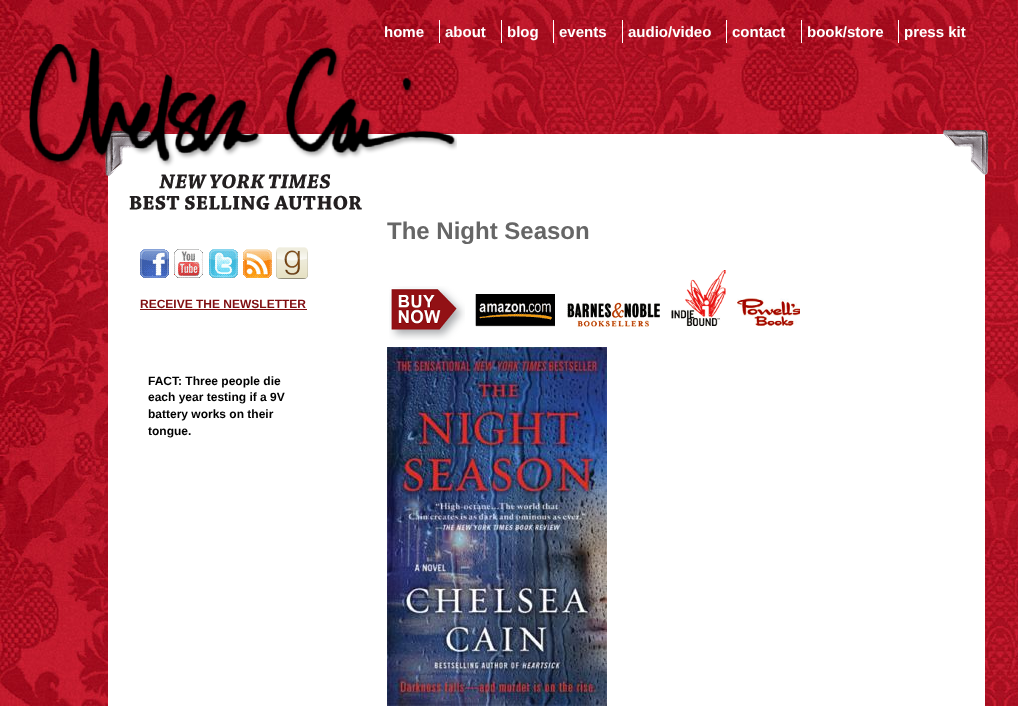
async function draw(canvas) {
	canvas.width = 1018;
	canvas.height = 706;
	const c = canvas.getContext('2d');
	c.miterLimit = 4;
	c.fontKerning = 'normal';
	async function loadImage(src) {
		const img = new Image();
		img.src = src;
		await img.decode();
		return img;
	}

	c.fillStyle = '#fff';
	c.fillRect(0, 0, 1018, 706);
	c.drawImage(await loadImage('img1.png'), 0, 0, 1018, 706);
	c.font = 'bold 15px Liberation Sans';
	c.fillText('home', 384, 37);
	c.fillRect(439, 20, 1, 23);
	c.fillText('about', 445, 37);
	c.fillRect(501, 20, 1, 23);
	c.fillText('blog', 507, 37);
	c.fillRect(553, 20, 1, 23);
	c.fillText('events', 559, 37);
	c.fillRect(622, 20, 1, 23);
	c.fillText('audio/video', 628, 37);
	c.fillRect(726, 20, 1, 23);
	c.fillText('contact', 732, 37);
	c.fillRect(801, 20, 1, 23);
	c.fillText('book/store', 807, 37);
	c.fillRect(898, 20, 1, 23);
	c.fillText('press kit', 904, 37);
	c.drawImage(await loadImage('img3.png'), 105, 130, 884, 48);
	c.fillRect(108, 178, 877, 528);
	c.drawImage(await loadImage('img2.png'), 29, 44, 428, 166);
	c.font = 'bold 24px Liberation Sans';
	c.fillStyle = '#666';
	c.fillText('The Night Season', 387, 239);
	c.drawImage(await loadImage('img4.png'), 389, 286, 76, 54);
	c.drawImage(await loadImage('img5.png'), 475, 294, 80, 33);
	c.drawImage(await loadImage('img6.png'), 567, 302, 93, 25);
	c.drawImage(await loadImage('img7.png'), 671, 270, 55, 57);
	c.drawImage(await loadImage('img8.png'), 737, 298, 63, 28);
	c.drawImage(await loadImage('img9.png'), 387, 347, 220, 359);
	c.drawImage(await loadImage('img10.png'), 140, 249, 29, 29);
	c.drawImage(await loadImage('img11.png'), 174, 249, 29, 29);
	c.drawImage(await loadImage('img12.png'), 209, 249, 29, 29);
	c.drawImage(await loadImage('img13.png'), 243, 249, 29, 29);
	c.drawImage(await loadImage('img14.png'), 276, 247, 32, 32);
	c.font = 'bold 12px Liberation Sans';
	c.fillStyle = '#800e11';
	c.fillText('RECEIVE THE NEWSLETTER', 140, 308);
	c.fillRect(140, 309, 167, 1);
	c.fillStyle = '#010101';
	for (const [text, x, y] of [
		['FACT: Three people die', 148, 385],
		['each year testing if a 9V', 148, 401],
		['battery works on their', 148, 418],
		['tongue.', 148, 435],
	]) {
		c.fillText(text, x, y);
	}
}

draw(document.querySelector('canvas'));
